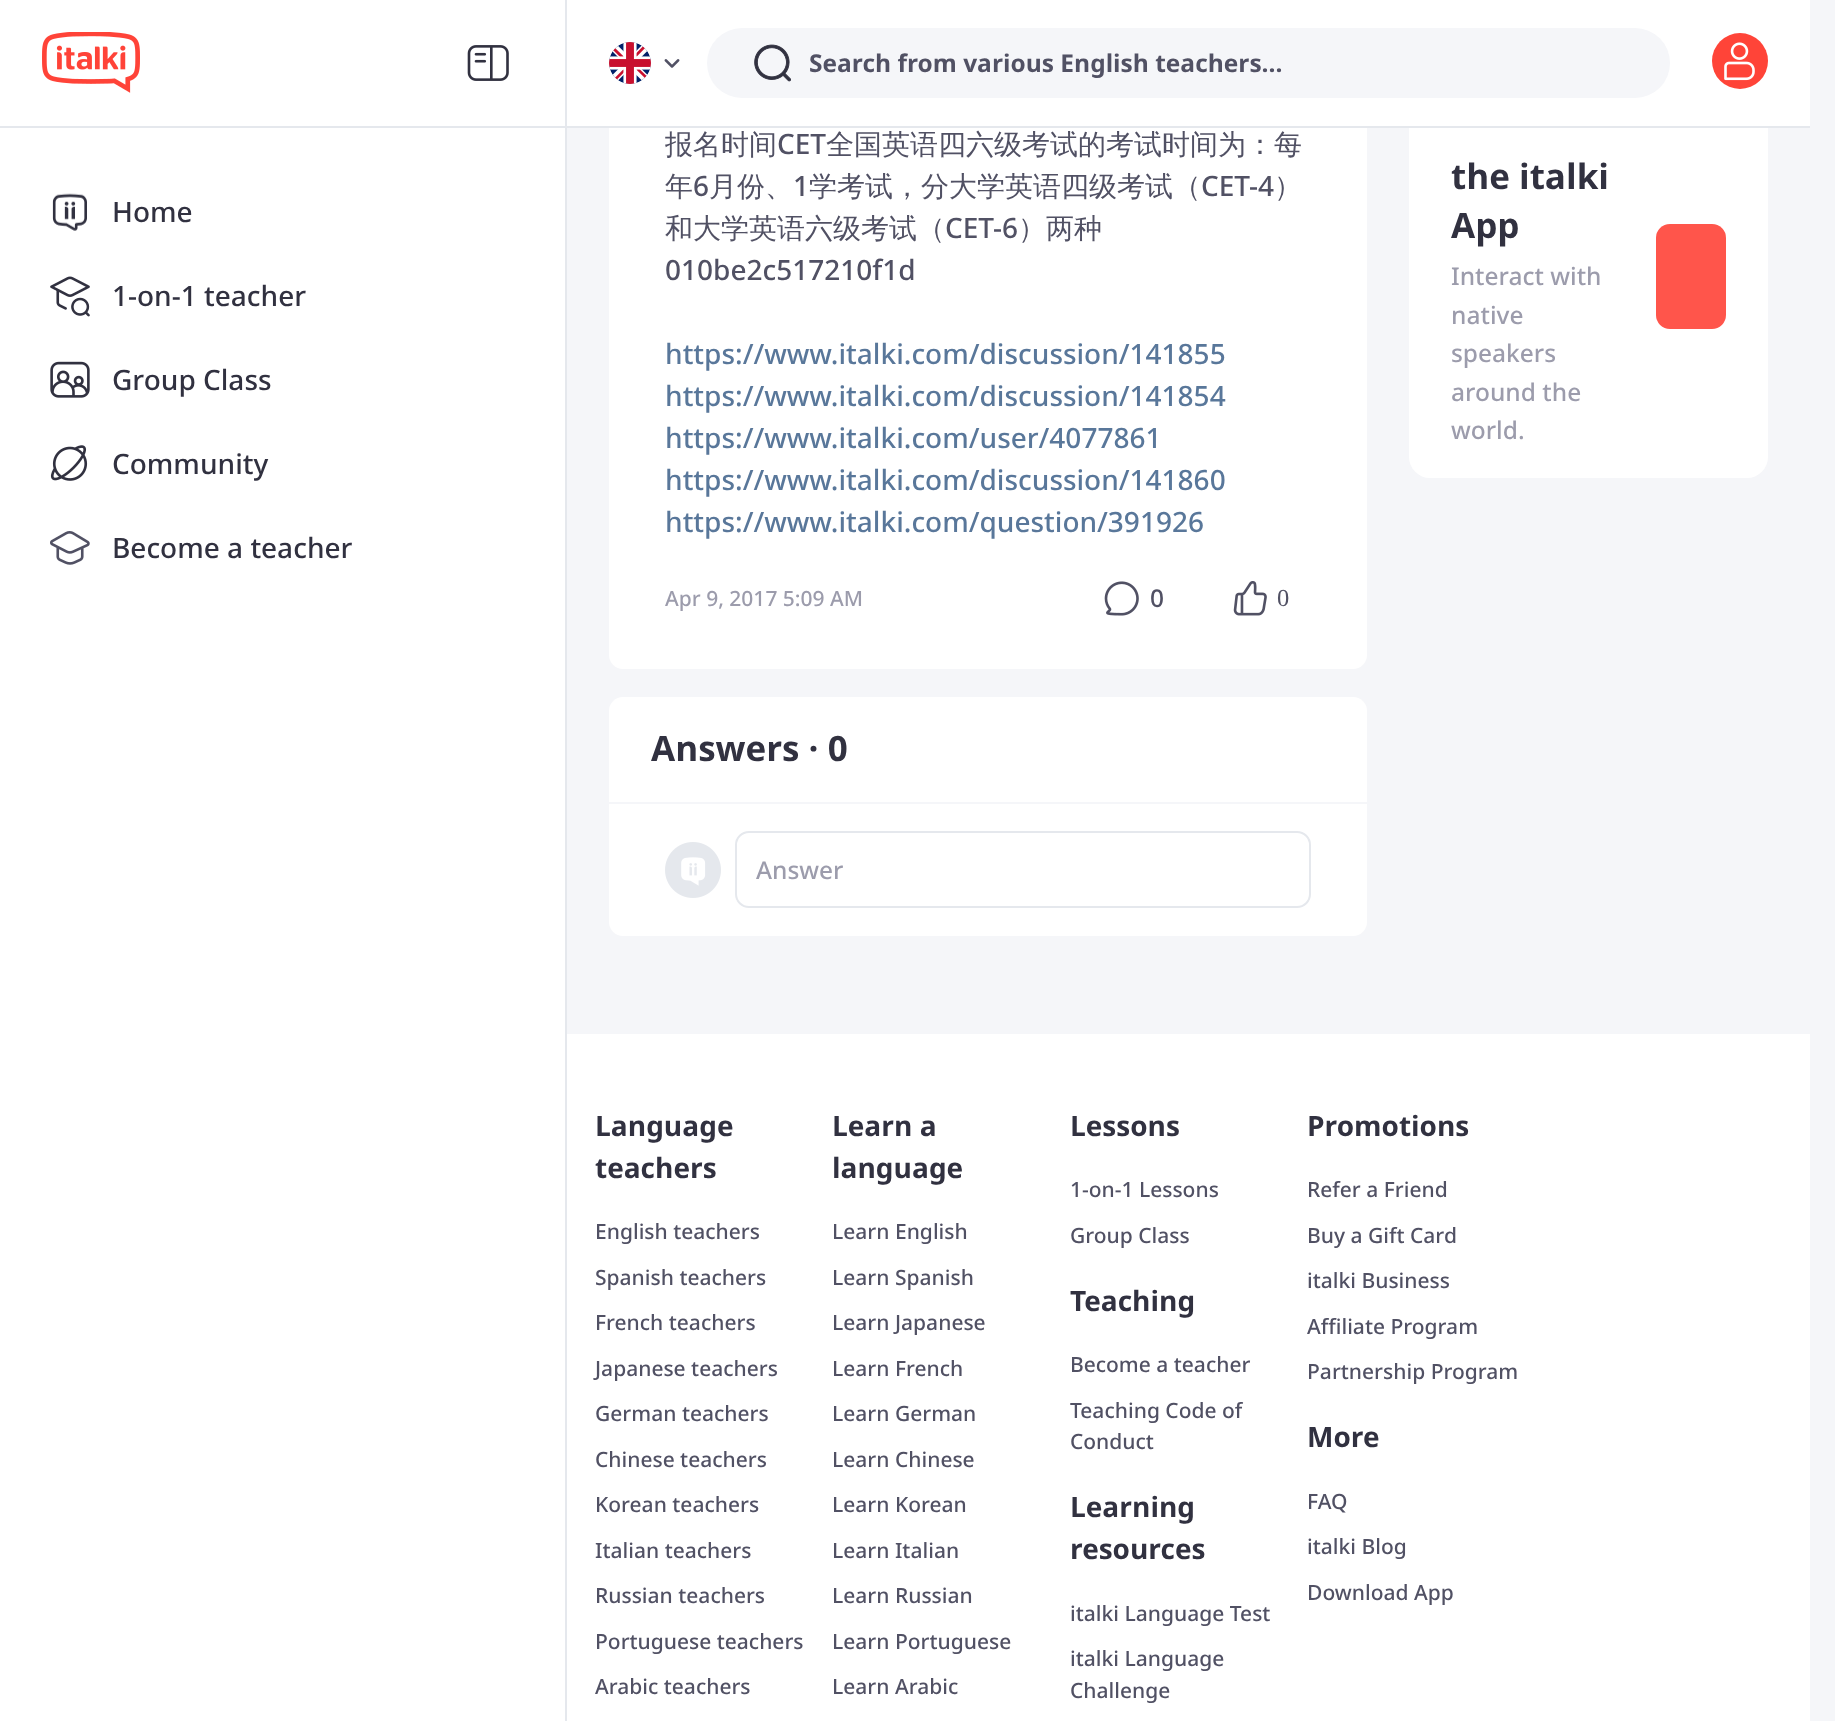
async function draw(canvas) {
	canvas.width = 1835;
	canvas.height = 1721;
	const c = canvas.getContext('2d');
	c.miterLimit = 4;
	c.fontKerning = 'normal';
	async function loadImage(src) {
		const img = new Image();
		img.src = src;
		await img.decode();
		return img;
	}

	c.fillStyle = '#f5f6f9';
	c.fillRect(0, 0, 1835, 1721);
	for (const [x, y, w, h, color] of [
		[0, 0, 565, 1721, '#fff'],
		[565, 0, 2, 1721, '#e5e8ed'],
		[0, 126, 565, 2, '#e5e8ed'],
	]) {
		c.fillStyle = color;
		c.fillRect(x, y, w, h);
	}
	c.drawImage(await loadImage('img1.png'), 42, 32, 98, 61);
	c.drawImage(await loadImage('img2.png'), 467, 45, 42, 36);
	c.drawImage(await loadImage('img3.png'), 52, 193, 35, 38);
	c.font = '500 28px Noto Sans';
	c.fillStyle = '#313140';
	c.fillText('Home', 112, 222);
	c.drawImage(await loadImage('img4.png'), 50, 276, 40, 41);
	c.fillText('1-on-1 teacher', 112, 306);
	c.drawImage(await loadImage('img5.png'), 50, 361, 40, 37);
	c.fillText('Group Class', 112, 390);
	c.drawImage(await loadImage('img6.png'), 50, 445, 38, 36);
	c.fillText('Community', 112, 474);
	c.drawImage(await loadImage('img7.png'), 50, 531, 40, 34);
	c.fillText('Become a teacher', 112, 558);
	c.fillStyle = '#fff';
	c.beginPath();
	c.roundRect(609, -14, 758, 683, 14);
	c.fill();
	c.beginPath();
	c.roundRect(1409, 75, 359, 403, 21);
	c.fill();
	c.fillRect(567, 0, 1243, 126);
	c.fillStyle = '#e5e8ed';
	c.fillRect(567, 126, 1243, 2);
	c.fillStyle = '#f5f6f9';
	c.beginPath();
	c.arc(630, 63, 21, 0, 2 * Math.PI);
	c.fill();
	c.drawImage(await loadImage('img8.png'), 609, 42, 42, 42);
	c.drawImage(await loadImage('img9.png'), 664, 59, 16, 9);
	c.beginPath();
	c.roundRect(707, 28, 963, 70, 35);
	c.fill();
	c.drawImage(await loadImage('img10.png'), 754, 44, 37, 38);
	c.font = 'bold 24.5px Noto Sans';
	c.fillStyle = '#515164';
	c.fillText('Search from various English teachers...', 809, 72);
	c.fillStyle = '#ff4438';
	c.beginPath();
	c.arc(1740, 61, 28, 0, 2 * Math.PI);
	c.fill();
	c.drawImage(await loadImage('img11.png'), 1724, 42, 31, 39);
	c.font = '500 28px WenQuanYi Zen Hei';
	c.fillStyle = '#515164';
	c.fillText('报名时间', 665, 154);
	c.font = '500 28px Noto Sans';
	c.fillText('CET', 777, 154);
	c.font = '500 28px WenQuanYi Zen Hei';
	c.fillText('全国英语四六级考试的考试时间为：每', 826, 154);
	c.fillText('年', 665, 196);
	c.font = '500 28px Noto Sans';
	c.fillText('6', 693, 196);
	c.font = '500 28px WenQuanYi Zen Hei';
	c.fillText('月份、', 709, 196);
	c.font = '500 28px Noto Sans';
	c.fillText('1', 793, 196);
	c.font = '500 28px WenQuanYi Zen Hei';
	c.fillText('学考试，分大学英语四级考试（', 809, 196);
	c.font = '500 28px Noto Sans';
	c.fillText('CET-4', 1201, 196);
	c.font = '500 28px WenQuanYi Zen Hei';
	c.fillText('）', 1274, 196);
	c.fillText('和大学英语六级考试（', 665, 238);
	c.font = '500 28px Noto Sans';
	c.fillText('CET-6', 945, 238);
	c.font = '500 28px WenQuanYi Zen Hei';
	c.fillText('）两种', 1018, 238);
	c.font = '500 28px Noto Sans';
	c.fillText('010be2c517210f1d', 665, 280);
	c.fillStyle = '#59779a';
	for (const [text, x, y] of [
		['https://www.italki.com/discussion/141855', 665, 364],
		['https://www.italki.com/discussion/141854', 665, 406],
		['https://www.italki.com/user/4077861', 665, 448],
		['https://www.italki.com/discussion/141860', 665, 490],
		['https://www.italki.com/question/391926', 665, 532],
	]) {
		c.fillText(text, x, y);
	}
	c.font = '500 21px Noto Sans';
	c.fillStyle = '#9c9cac';
	c.fillText('Apr 9, 2017 5:09 AM', 665, 606);
	c.drawImage(await loadImage('img12.png'), 1104, 581, 35, 35);
	c.font = '500 24.5px Noto Sans';
	c.fillStyle = '#515164';
	c.fillText('0', 1150, 607);
	c.drawImage(await loadImage('img13.png'), 1233, 581, 34, 35);
	c.font = '24.5px Liberation Serif';
	c.fillText('0', 1277, 606);
	c.fillStyle = '#fff';
	c.beginPath();
	c.roundRect(609, 697, 758, 239, 14);
	c.fill();
	c.font = 'bold 35px Noto Sans';
	c.fillStyle = '#313140';
	c.fillText('Answers · 0', 651, 761);
	c.fillStyle = '#f5f6f9';
	c.fillRect(609, 802, 758, 2);
	c.drawImage(await loadImage('img14.png'), 665, 842, 56, 56);
	c.beginPath();
	c.roundRect(736, 832, 574, 75, 13);
	c.strokeStyle = '#e5e8ed';
	c.lineWidth = 2;
	c.stroke();
	c.font = '500 24.5px Noto Sans';
	c.fillStyle = '#9c9cac';
	c.fillText('Answer', 756, 879);
	c.font = 'bold 35px Noto Sans';
	c.fillStyle = '#313140';
	c.fillText('the italki', 1451, 189);
	c.fillText('App', 1451, 238);
	c.font = '500 24.5px Noto Sans';
	c.fillStyle = '#9c9cac';
	for (const [text, x, y] of [
		['Interact with', 1451, 285],
		['native', 1451, 324],
		['speakers', 1451, 362],
		['around the', 1451, 401],
		['world.', 1451, 439],
	]) {
		c.fillText(text, x, y);
	}
	c.fillStyle = '#ff554b';
	c.beginPath();
	c.roundRect(1656, 224, 70, 105, 14);
	c.fill();
	c.fillStyle = '#fff';
	c.fillRect(567, 1034, 1243, 687);
	c.font = 'bold 28px Noto Sans';
	c.fillStyle = '#313140';
	c.fillText('Language', 595, 1136);
	c.fillText('teachers', 595, 1178);
	c.font = '500 21px Noto Sans';
	c.fillStyle = '#515164';
	for (const [text, x, y] of [
		['English teachers', 595, 1239],
		['Spanish teachers', 595, 1285],
		['French teachers', 595, 1330],
		['Japanese teachers', 595, 1376],
		['German teachers', 595, 1421],
		['Chinese teachers', 595, 1467],
		['Korean teachers', 595, 1512],
		['Italian teachers', 595, 1558],
		['Russian teachers', 595, 1603],
		['Portuguese teachers', 595, 1649],
		['Arabic teachers', 595, 1694],
	]) {
		c.fillText(text, x, y);
	}
	c.font = 'bold 28px Noto Sans';
	c.fillStyle = '#313140';
	c.fillText('Learn a', 832, 1136);
	c.fillText('language', 832, 1178);
	c.font = '500 21px Noto Sans';
	c.fillStyle = '#515164';
	for (const [text, x, y] of [
		['Learn English', 832, 1239],
		['Learn Spanish', 832, 1285],
		['Learn Japanese', 832, 1330],
		['Learn French', 832, 1376],
		['Learn German', 832, 1421],
		['Learn Chinese', 832, 1467],
		['Learn Korean', 832, 1512],
		['Learn Italian', 832, 1558],
		['Learn Russian', 832, 1603],
		['Learn Portuguese', 832, 1649],
		['Learn Arabic', 832, 1694],
	]) {
		c.fillText(text, x, y);
	}
	c.font = 'bold 28px Noto Sans';
	c.fillStyle = '#313140';
	c.fillText('Lessons', 1070, 1136);
	c.font = '500 21px Noto Sans';
	c.fillStyle = '#515164';
	c.fillText('1-on-1 Lessons', 1070, 1197);
	c.fillText('Group Class', 1070, 1243);
	c.font = 'bold 28px Noto Sans';
	c.fillStyle = '#313140';
	c.fillText('Teaching', 1070, 1311);
	c.font = '500 21px Noto Sans';
	c.fillStyle = '#515164';
	for (const [text, x, y] of [
		['Become a teacher', 1070, 1372],
		['Teaching Code of', 1070, 1418],
		['Conduct', 1070, 1449],
	]) {
		c.fillText(text, x, y);
	}
	c.font = 'bold 28px Noto Sans';
	c.fillStyle = '#313140';
	c.fillText('Learning', 1070, 1517);
	c.fillText('resources', 1070, 1559);
	c.font = '500 21px Noto Sans';
	c.fillStyle = '#515164';
	for (const [text, x, y] of [
		['italki Language Test', 1070, 1621],
		['italki Language', 1070, 1666],
		['Challenge', 1070, 1698],
	]) {
		c.fillText(text, x, y);
	}
	c.font = 'bold 28px Noto Sans';
	c.fillStyle = '#313140';
	c.fillText('Promotions', 1307, 1136);
	c.font = '500 21px Noto Sans';
	c.fillStyle = '#515164';
	for (const [text, x, y] of [
		['Refer a Friend', 1307, 1197],
		['Buy a Gift Card', 1307, 1243],
		['italki Business', 1307, 1288],
		['Affiliate Program', 1307, 1334],
		['Partnership Program', 1307, 1379],
	]) {
		c.fillText(text, x, y);
	}
	c.font = 'bold 28px Noto Sans';
	c.fillStyle = '#313140';
	c.fillText('More', 1307, 1447);
	c.font = '500 21px Noto Sans';
	c.fillStyle = '#515164';
	for (const [text, x, y] of [
		['FAQ', 1307, 1509],
		['italki Blog', 1307, 1554],
		['Download App', 1307, 1600],
	]) {
		c.fillText(text, x, y);
	}
}

draw(document.querySelector('canvas'));
